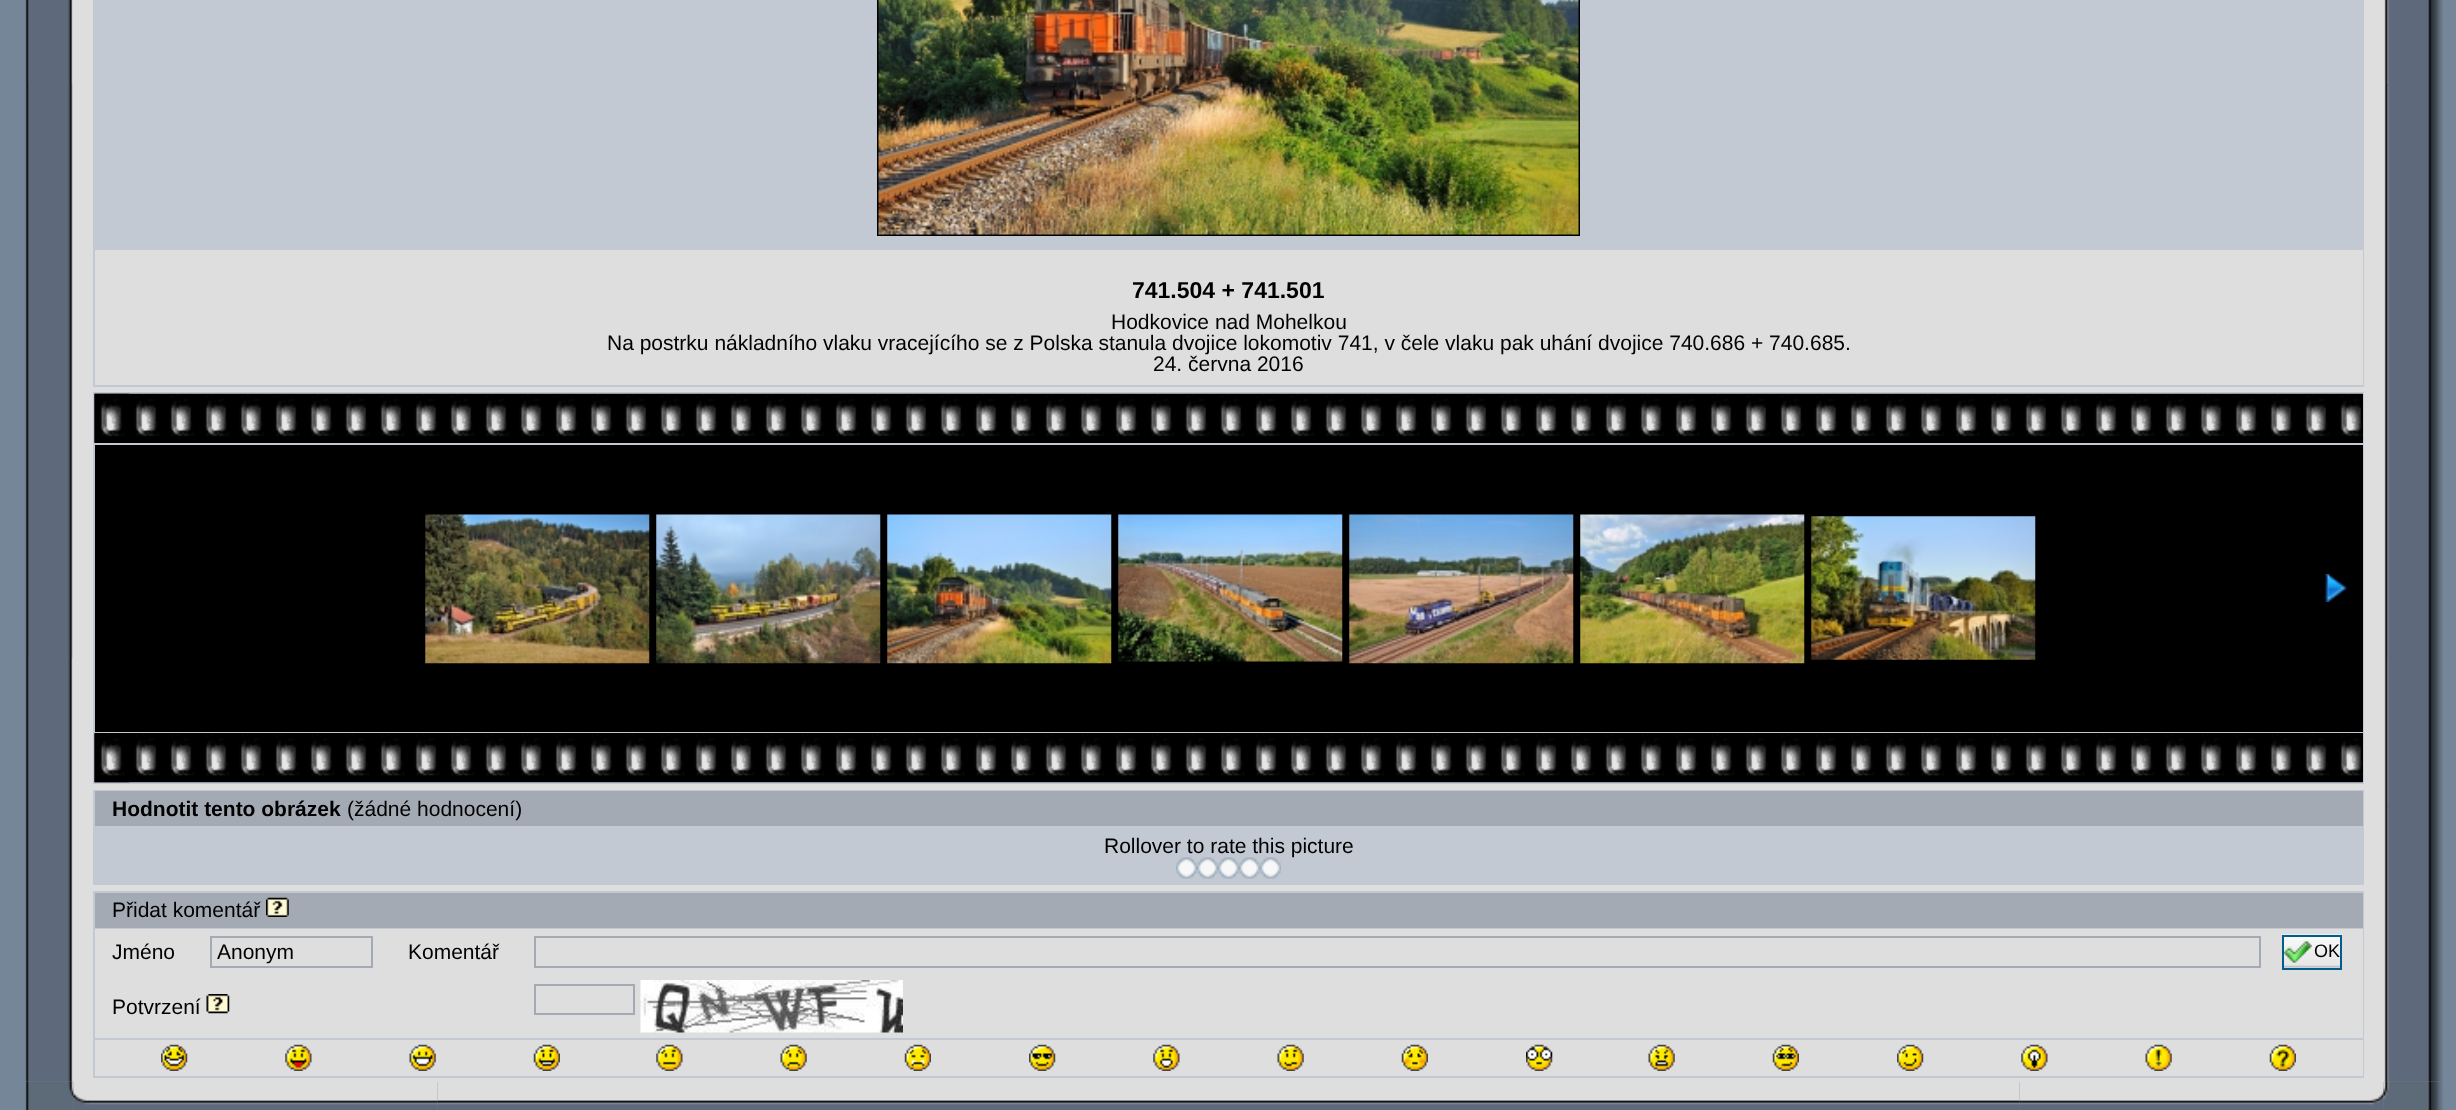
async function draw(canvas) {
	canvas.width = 2456;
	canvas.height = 1110;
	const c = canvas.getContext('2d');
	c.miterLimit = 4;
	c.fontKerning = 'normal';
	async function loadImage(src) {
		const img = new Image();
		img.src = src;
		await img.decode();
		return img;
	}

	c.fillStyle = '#758698';
	c.fillRect(0, 0, 2456, 1110);
	c.drawImage(await loadImage('img1.png'), 25, 0, 48, 1082);
	c.drawImage(await loadImage('img2.png'), 28, 84, 45, 574);
	c.fillStyle = '#dedede';
	c.fillRect(73, 0, 2311, 1082);
	c.fillStyle = '#c2c9d3';
	c.fillRect(93, 0, 2271, 387);
	c.strokeStyle = '#000';
	c.lineWidth = 2;
	c.strokeRect(878, -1, 701, 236);
	c.drawImage(await loadImage('img3.png'), 878, 0, 701, 235);
	c.fillStyle = '#dedede';
	c.fillRect(95, 250, 2268, 135);
	c.font = 'bold 23px Liberation Sans';
	c.fillStyle = '#000';
	c.fillText('741.504 + 741.501', 1132, 298);
	c.font = '21px Liberation Sans';
	for (const [text, x, y] of [
		['Hodkovice nad Mohelkou', 1111, 329],
		['Na postrku nákladního vlaku vracejícího se z Polska stanula dvojice lokomotiv 741, v čele vlaku pak uhání dvojice 740.686 + 740.685.', 607, 350],
		['24. června 2016', 1153, 371],
	]) {
		c.fillText(text, x, y);
	}
	c.fillStyle = '#c2c9d3';
	c.fillRect(93, 392, 2271, 392);
	c.fillStyle = '#000';
	c.fillRect(95, 394, 2268, 49);
	c.drawImage(await loadImage('img4.png'), 94, 393, 2269, 50);
	c.drawImage(await loadImage('img5.png'), 94, 393, 36, 50);
	c.fillRect(95, 445, 2268, 287);
	c.drawImage(await loadImage('img6.png'), 425, 514, 225, 150);
	c.drawImage(await loadImage('img7.png'), 656, 514, 225, 150);
	c.drawImage(await loadImage('img8.png'), 887, 514, 225, 150);
	c.drawImage(await loadImage('img9.png'), 1118, 514, 225, 148);
	c.drawImage(await loadImage('img10.png'), 1349, 514, 225, 150);
	c.drawImage(await loadImage('img11.png'), 1580, 514, 225, 150);
	c.drawImage(await loadImage('img12.png'), 1811, 516, 225, 144);
	c.drawImage(await loadImage('img13.png'), 2325, 574, 23, 28);
	c.fillRect(95, 733, 2268, 49);
	c.drawImage(await loadImage('img14.png'), 94, 733, 2269, 50);
	c.drawImage(await loadImage('img15.png'), 94, 733, 36, 50);
	c.fillStyle = '#c2c9d3';
	c.fillRect(93, 790, 2271, 95);
	c.fillStyle = '#a3aab4';
	c.fillRect(95, 791, 2268, 35);
	c.font = 'bold 21px Liberation Sans';
	c.fillStyle = '#000';
	c.fillText('Hodnotit tento obrázek', 112, 816);
	c.font = '21px Liberation Sans';
	c.fillText('(žádné hodnocení)', 347, 816);
	c.fillText('Rollover to rate this picture', 1104, 853);
	c.drawImage(await loadImage('img16.png'), 1176, 857, 21, 22);
	c.drawImage(await loadImage('img16.png'), 1197, 857, 21, 22);
	c.drawImage(await loadImage('img17.png'), 1218, 857, 21, 22);
	c.drawImage(await loadImage('img17.png'), 1239, 857, 21, 22);
	c.drawImage(await loadImage('img17.png'), 1260, 857, 21, 22);
	c.fillStyle = '#c2c9d3';
	c.fillRect(93, 891, 2271, 187);
	c.fillStyle = '#a3aab4';
	c.fillRect(95, 893, 2268, 35);
	c.fillStyle = '#000';
	c.fillText('Přidat komentář', 112, 917);
	c.drawImage(await loadImage('img18.png'), 266, 897, 23, 20);
	c.fillStyle = '#dedede';
	c.fillRect(95, 929, 2268, 46);
	c.fillStyle = '#000';
	c.fillText('Jméno', 112, 959);
	c.strokeStyle = '#a3aab4';
	c.strokeRect(211, 937, 161, 30);
	c.fillText('Anonym', 217, 959);
	c.fillText('Komentář', 408, 959);
	c.strokeRect(535, 937, 1725, 30);
	c.drawImage(await loadImage('img19.png'), 2282, 934, 60, 34);
	c.strokeStyle = '#005d8c';
	c.strokeRect(2283, 936, 58, 33);
	c.drawImage(await loadImage('img20.png'), 2283, 941, 29, 22);
	c.font = '18px Liberation Sans';
	c.fillText('OK', 2314, 957);
	c.fillStyle = '#dedede';
	c.fillRect(95, 975, 2268, 63);
	c.font = '21px Liberation Sans';
	c.fillStyle = '#000';
	c.fillText('Potvrzení', 112, 1014);
	c.drawImage(await loadImage('img21.png'), 206, 994, 24, 20);
	c.strokeStyle = '#a3aab4';
	c.strokeRect(535, 985, 99, 29);
	c.drawImage(await loadImage('img22.png'), 640, 980, 263, 53);
	c.fillStyle = '#dedede';
	c.fillRect(95, 1040, 2268, 36);
	c.drawImage(await loadImage('img23.png'), 161, 1044, 27, 27);
	c.drawImage(await loadImage('img24.png'), 285, 1044, 27, 27);
	c.drawImage(await loadImage('img25.png'), 409, 1044, 27, 27);
	c.drawImage(await loadImage('img26.png'), 533, 1044, 27, 27);
	c.drawImage(await loadImage('img27.png'), 656, 1044, 27, 27);
	c.drawImage(await loadImage('img28.png'), 780, 1044, 27, 27);
	c.drawImage(await loadImage('img29.png'), 904, 1044, 27, 27);
	c.drawImage(await loadImage('img30.png'), 1029, 1044, 27, 27);
	c.drawImage(await loadImage('img31.png'), 1153, 1044, 27, 27);
	c.drawImage(await loadImage('img32.png'), 1277, 1044, 27, 27);
	c.drawImage(await loadImage('img33.png'), 1401, 1044, 27, 27);
	c.drawImage(await loadImage('img34.png'), 1526, 1044, 27, 27);
	c.drawImage(await loadImage('img35.png'), 1648, 1044, 27, 27);
	c.drawImage(await loadImage('img36.png'), 1772, 1044, 27, 27);
	c.drawImage(await loadImage('img37.png'), 1897, 1044, 27, 27);
	c.drawImage(await loadImage('img38.png'), 2021, 1044, 27, 27);
	c.drawImage(await loadImage('img39.png'), 2145, 1044, 27, 27);
	c.drawImage(await loadImage('img40.png'), 2269, 1044, 27, 27);
	c.drawImage(await loadImage('img41.png'), 2384, 0, 59, 1082);
	c.drawImage(await loadImage('img42.png'), 2386, 84, 3, 574);
	c.drawImage(await loadImage('img43.png'), 25, 1081, 49, 29);
	c.drawImage(await loadImage('img44.png'), 73, 1082, 365, 28);
	c.drawImage(await loadImage('img45.png'), 437, 1082, 1583, 28);
	c.drawImage(await loadImage('img46.png'), 2019, 1082, 365, 28);
	c.drawImage(await loadImage('img47.png'), 2383, 1081, 60, 29);
}

draw(document.querySelector('canvas'));
